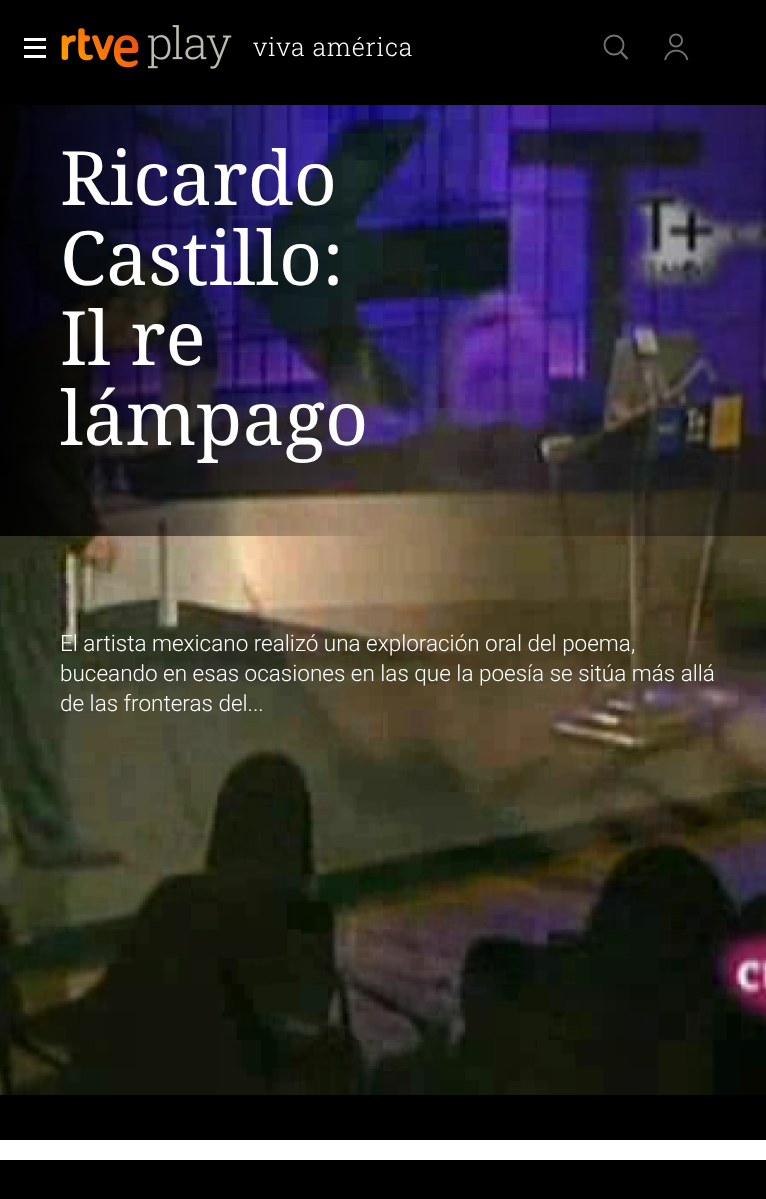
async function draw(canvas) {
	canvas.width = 766;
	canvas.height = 1199;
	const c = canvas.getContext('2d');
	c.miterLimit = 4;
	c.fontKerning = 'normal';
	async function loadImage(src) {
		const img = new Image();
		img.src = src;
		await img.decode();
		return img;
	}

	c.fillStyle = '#000';
	c.fillRect(0, 0, 766, 1199);
	for (const [x, y, w, h, color] of [
		[24, 38, 22, 3, '#fff'],
		[24, 46, 22, 3, '#fff'],
		[24, 55, 22, 3, '#fff'],
	]) {
		c.fillStyle = color;
		c.fillRect(x, y, w, h);
	}
	c.drawImage(await loadImage('img1.png'), 61, 28, 78, 40);
	c.drawImage(await loadImage('img2.png'), 147, 25, 85, 44);
	c.letterSpacing = '0.75px';
	c.font = '300 25px Roboto Slab';
	c.fillText('viva américa', 253, 56);
	c.beginPath();
	c.arc(614, 45, 9.5, 0, 2 * Math.PI);
	c.strokeStyle = '#727272';
	c.lineWidth = 1.9;
	c.stroke();
	c.beginPath();
	c.moveTo(620.5, 51.5);
	c.lineTo(627.5, 59);
	c.lineWidth = 2.5;
	c.stroke();
	c.drawImage(await loadImage('img3.png'), 664, 33, 25, 27);
	c.drawImage(await loadImage('img4.png'), 0, 105, 766, 990);
	c.letterSpacing = '0px';
	c.font = '75px Noto Serif';
	for (const [text, x, y] of [
		['Ricardo', 60, 205],
		['Castillo:', 60, 285],
		['Il re', 60, 365],
		['lámpago', 60, 445],
	]) {
		c.fillText(text, x, y);
	}
	c.font = '300 22.5px Roboto';
	for (const [text, x, y] of [
		['El artista mexicano realizó una exploración oral del poema,', 60, 651],
		['buceando en esas ocasiones en las que la poesía se sitúa más allá', 60, 681],
		['de las fronteras del...', 60, 711],
	]) {
		c.fillText(text, x, y);
	}
	c.fillRect(0, 1140, 766, 20);
}

draw(document.querySelector('canvas'));
